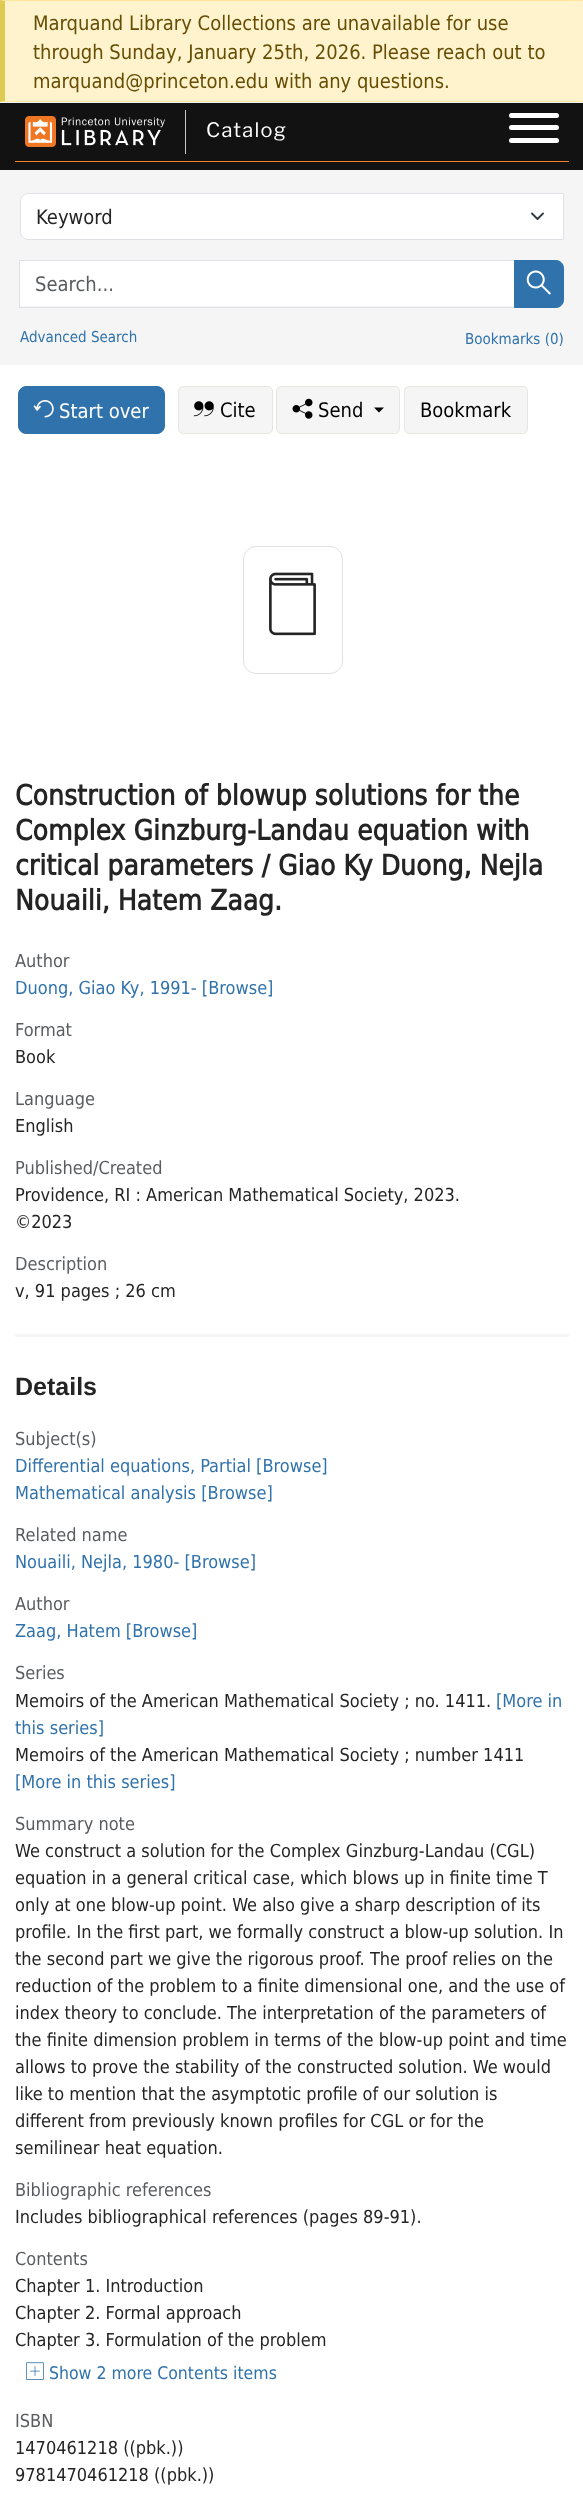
async function draw(canvas) {
	canvas.width = 583;
	canvas.height = 2493;
	const c = canvas.getContext('2d');
	c.miterLimit = 4;
	c.fontKerning = 'normal';
	async function loadImage(src) {
		const img = new Image();
		img.src = src;
		await img.decode();
		return img;
	}

	c.fillStyle = '#f5f5f5';
	c.fillRect(0, 0, 583, 2493);
	c.fillStyle = '#fff3cd';
	c.fillRect(5, 1, 578, 100);
	c.fillStyle = '#ffe69c';
	c.beginPath();
	c.moveTo(0, 0);
	c.lineTo(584, 0);
	c.lineTo(582, 1);
	c.lineTo(5, 1);
	c.closePath();
	c.fill();
	c.beginPath();
	c.moveTo(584, 102);
	c.lineTo(0, 102);
	c.lineTo(5, 101);
	c.lineTo(582, 101);
	c.closePath();
	c.fill();
	c.fillStyle = '#e0cb52';
	c.beginPath();
	c.moveTo(0, 102);
	c.lineTo(0, 0);
	c.lineTo(5, 1);
	c.lineTo(5, 101);
	c.closePath();
	c.fill();
	c.font = '20px DejaVu Sans';
	c.fillStyle = '#664d03';
	for (const [text, x, y] of [
		['Marquand Library Collections are unavailable for use', 33, 30],
		['through Sunday, January 25th, 2026. Please reach out to', 33, 59],
		['marquand@princeton.edu with any questions.', 33, 88],
	]) {
		c.fillText(text, x, y);
	}
	c.fillStyle = '#121212';
	c.fillRect(0, 103, 583, 67);
	c.fillStyle = '#f58025';
	c.fillRect(15, 161, 554, 1);
	c.drawImage(await loadImage('img1.png'), 25, 116, 140, 31);
	c.fillStyle = '#c5c8ce';
	c.fillRect(185, 110, 1, 44);
	c.letterSpacing = '1.25px';
	c.font = '20px Libre Franklin';
	c.fillStyle = '#fff';
	c.fillText('Catalog', 206, 137);
	c.beginPath();
	c.roundRect(509, 125, 50, 5, 2.5);
	c.fill();
	c.beginPath();
	c.roundRect(509, 113, 50, 5, 2.5);
	c.fill();
	c.beginPath();
	c.roundRect(509, 138, 50, 5, 2.5);
	c.fill();
	c.beginPath();
	c.roundRect(20, 193, 544, 47, [8, 0, 0, 8]);
	c.fill();
	c.beginPath();
	c.moveTo(532, 213.5);
	c.lineTo(537.5, 219);
	c.lineTo(543, 213.5);
	c.strokeStyle = '#343a40';
	c.lineWidth = 1.9;
	c.lineCap = 'round';
	c.lineJoin = 'round';
	c.stroke();
	c.beginPath();
	c.roundRect(20.5, 193.5, 543, 46, [7.5, 0, 0, 7.5]);
	c.strokeStyle = '#dee2e6';
	c.lineWidth = 1;
	c.lineJoin = 'miter';
	c.stroke();
	c.letterSpacing = '0px';
	c.font = '20px DejaVu Sans';
	c.fillStyle = '#242424';
	c.fillText('Keyword', 36, 224);
	c.fillStyle = '#fff';
	c.fillRect(20, 261, 494, 45);
	c.strokeRect(19.5, 260.5, 495, 47);
	c.fillStyle = '#595c5f';
	c.fillText('Search...', 35, 291);
	c.fillStyle = '#3072ab';
	c.beginPath();
	c.roundRect(514.5, 260.5, 49, 47, [0, 7.5, 7.5, 0]);
	c.fill();
	c.strokeStyle = '#3072ab';
	c.stroke();
	c.drawImage(await loadImage('img2.png'), 526, 270, 25, 25);
	c.font = '15px DejaVu Sans';
	c.fillText('Advanced Search', 20, 342);
	c.fillText('Bookmarks (0)', 465, 344);
	c.fillStyle = '#fff';
	c.fillRect(0, 365, 583, 2128);
	c.fillStyle = '#3072ab';
	c.beginPath();
	c.roundRect(18.5, 386.5, 146, 47, 7.5);
	c.fill();
	c.stroke();
	c.drawImage(await loadImage('img3.png'), 33, 400, 21, 18);
	c.font = '20px DejaVu Sans';
	c.fillStyle = '#fff';
	c.fillText('Start over', 59, 418);
	c.fillStyle = '#f5f5f5';
	c.beginPath();
	c.roundRect(178.5, 386.5, 94, 47, 4.5);
	c.fill();
	c.strokeStyle = '#e8e6df';
	c.stroke();
	c.drawImage(await loadImage('img4.png'), 193, 401, 21, 16);
	c.fillStyle = '#000';
	c.fillText('Cite', 220, 417);
	c.fillStyle = '#f5f5f5';
	c.beginPath();
	c.roundRect(276.5, 386.5, 123, 47, 4.5);
	c.fill();
	c.stroke();
	c.drawImage(await loadImage('img5.png'), 292, 398, 21, 21);
	c.fillStyle = '#000';
	c.fillText('Send', 318, 417);
	c.beginPath();
	c.moveTo(374, 407.5);
	c.lineTo(384, 407.5);
	c.lineTo(379, 412.5);
	c.closePath();
	c.fill();
	c.fillStyle = '#f5f5f5';
	c.beginPath();
	c.roundRect(404.5, 386.5, 123, 47, 4.5);
	c.fill();
	c.stroke();
	c.fillStyle = '#000';
	c.fillText('Bookmark', 420, 417);
	c.beginPath();
	c.roundRect(243.5, 546.5, 99, 127, 12.5);
	c.strokeStyle = '#e1e1e1';
	c.stroke();
	c.drawImage(await loadImage('img6.png'), 269, 572, 47, 64);
	c.font = 'bold 28px DejaVu Sans';
	c.fillStyle = '#242424';
	for (const [text, x, y] of [
		['Construction of blowup solutions for the', 15, 805],
		['Complex Ginzburg-Landau equation with', 15, 840],
		['critical parameters / Giao Ky Duong, Nejla', 15, 875],
		['Nouaili, Hatem Zaag.', 15, 910],
	]) {
		c.fillText(text, x, y);
	}
	c.fillStyle = '#f5f5f5';
	c.fillRect(15, 1334, 554, 3);
	c.font = '18px DejaVu Sans';
	c.fillStyle = '#595c5f';
	c.fillText('Author', 15, 967);
	c.fillStyle = '#3072ab';
	c.fillText('Duong, Giao Ky, 1991- [Browse]', 15, 994);
	c.fillStyle = '#595c5f';
	c.fillText('Format', 15, 1036);
	c.fillStyle = '#242424';
	c.fillText('Book', 15, 1063);
	c.fillStyle = '#595c5f';
	c.fillText('Language', 15, 1105);
	c.fillStyle = '#242424';
	c.fillText('English', 15, 1132);
	c.fillStyle = '#595c5f';
	c.fillText('Published/Created', 15, 1174);
	c.fillStyle = '#242424';
	c.fillText('Providence, RI : American Mathematical Society, 2023.', 15, 1201);
	c.fillText('©2023', 15, 1228);
	c.fillStyle = '#595c5f';
	c.fillText('Description', 15, 1270);
	c.fillStyle = '#242424';
	c.fillText('v, 91 pages ; 26 cm', 15, 1297);
	c.font = 'bold 25px Liberation Sans';
	c.fillText('Details', 15, 1395);
	c.font = '18px DejaVu Sans';
	c.fillStyle = '#595c5f';
	c.fillText('Subject(s)', 15, 1445);
	c.fillStyle = '#3072ab';
	c.fillText('Differential equations, Partial [Browse]', 15, 1472);
	c.fillText('Mathematical analysis [Browse]', 15, 1499);
	c.fillStyle = '#595c5f';
	c.fillText('Related name', 15, 1541);
	c.fillStyle = '#3072ab';
	c.fillText('Nouaili, Nejla, 1980- [Browse]', 15, 1568);
	c.fillStyle = '#595c5f';
	c.fillText('Author', 15, 1610);
	c.fillStyle = '#3072ab';
	c.fillText('Zaag, Hatem [Browse]', 15, 1637);
	c.fillStyle = '#595c5f';
	c.fillText('Series', 15, 1679);
	c.fillStyle = '#242424';
	c.fillText('Memoirs of the American Mathematical Society ; no. 1411.', 15, 1707);
	c.fillStyle = '#3072ab';
	c.fillText('[More in', 496, 1707);
	c.fillText('this series]', 15, 1734);
	c.fillStyle = '#242424';
	c.fillText('Memoirs of the American Mathematical Society ; number 1411', 15, 1761);
	c.fillStyle = '#3072ab';
	c.fillText('[More in this series]', 15, 1788);
	c.fillStyle = '#595c5f';
	c.fillText('Summary note', 15, 1830);
	c.fillStyle = '#242424';
	for (const [text, x, y] of [
		['We construct a solution for the Complex Ginzburg-Landau (CGL)', 15, 1857],
		['equation in a general critical case, which blows up in finite time T', 15, 1884],
		['only at one blow-up point. We also give a sharp description of its', 15, 1911],
		['profile. In the first part, we formally construct a blow-up solution. In', 15, 1938],
		['the second part we give the rigorous proof. The proof relies on the', 15, 1965],
		['reduction of the problem to a finite dimensional one, and the use of', 15, 1992],
		['index theory to conclude. The interpretation of the parameters of', 15, 2019],
		['the finite dimension problem in terms of the blow-up point and time', 15, 2046],
		['allows to prove the stability of the constructed solution. We would', 15, 2073],
		['like to mention that the asymptotic profile of our solution is', 15, 2100],
		['different from previously known profiles for CGL or for the', 15, 2127],
		['semilinear heat equation.', 15, 2154],
	]) {
		c.fillText(text, x, y);
	}
	c.fillStyle = '#595c5f';
	c.fillText('Bibliographic references', 15, 2196);
	c.fillStyle = '#242424';
	c.fillText('Includes bibliographical references (pages 89-91).', 15, 2223);
	c.fillStyle = '#595c5f';
	c.fillText('Contents', 15, 2265);
	c.fillStyle = '#242424';
	for (const [text, x, y] of [
		['Chapter 1. Introduction', 15, 2292],
		['Chapter 2. Formal approach', 15, 2319],
		['Chapter 3. Formulation of the problem', 15, 2346],
	]) {
		c.fillText(text, x, y);
	}
	c.drawImage(await loadImage('img7.png'), 26, 2362, 18, 18);
	c.font = '17.5px DejaVu Sans';
	c.fillStyle = '#3072ab';
	c.fillText('Show 2 more Contents items', 49, 2379);
	c.font = '18px DejaVu Sans';
	c.fillStyle = '#595c5f';
	c.fillText('ISBN', 15, 2427);
	c.fillStyle = '#242424';
	c.fillText('1470461218 ((pbk.))', 15, 2454);
	c.fillText('9781470461218 ((pbk.))', 15, 2481);
}

draw(document.querySelector('canvas'));
